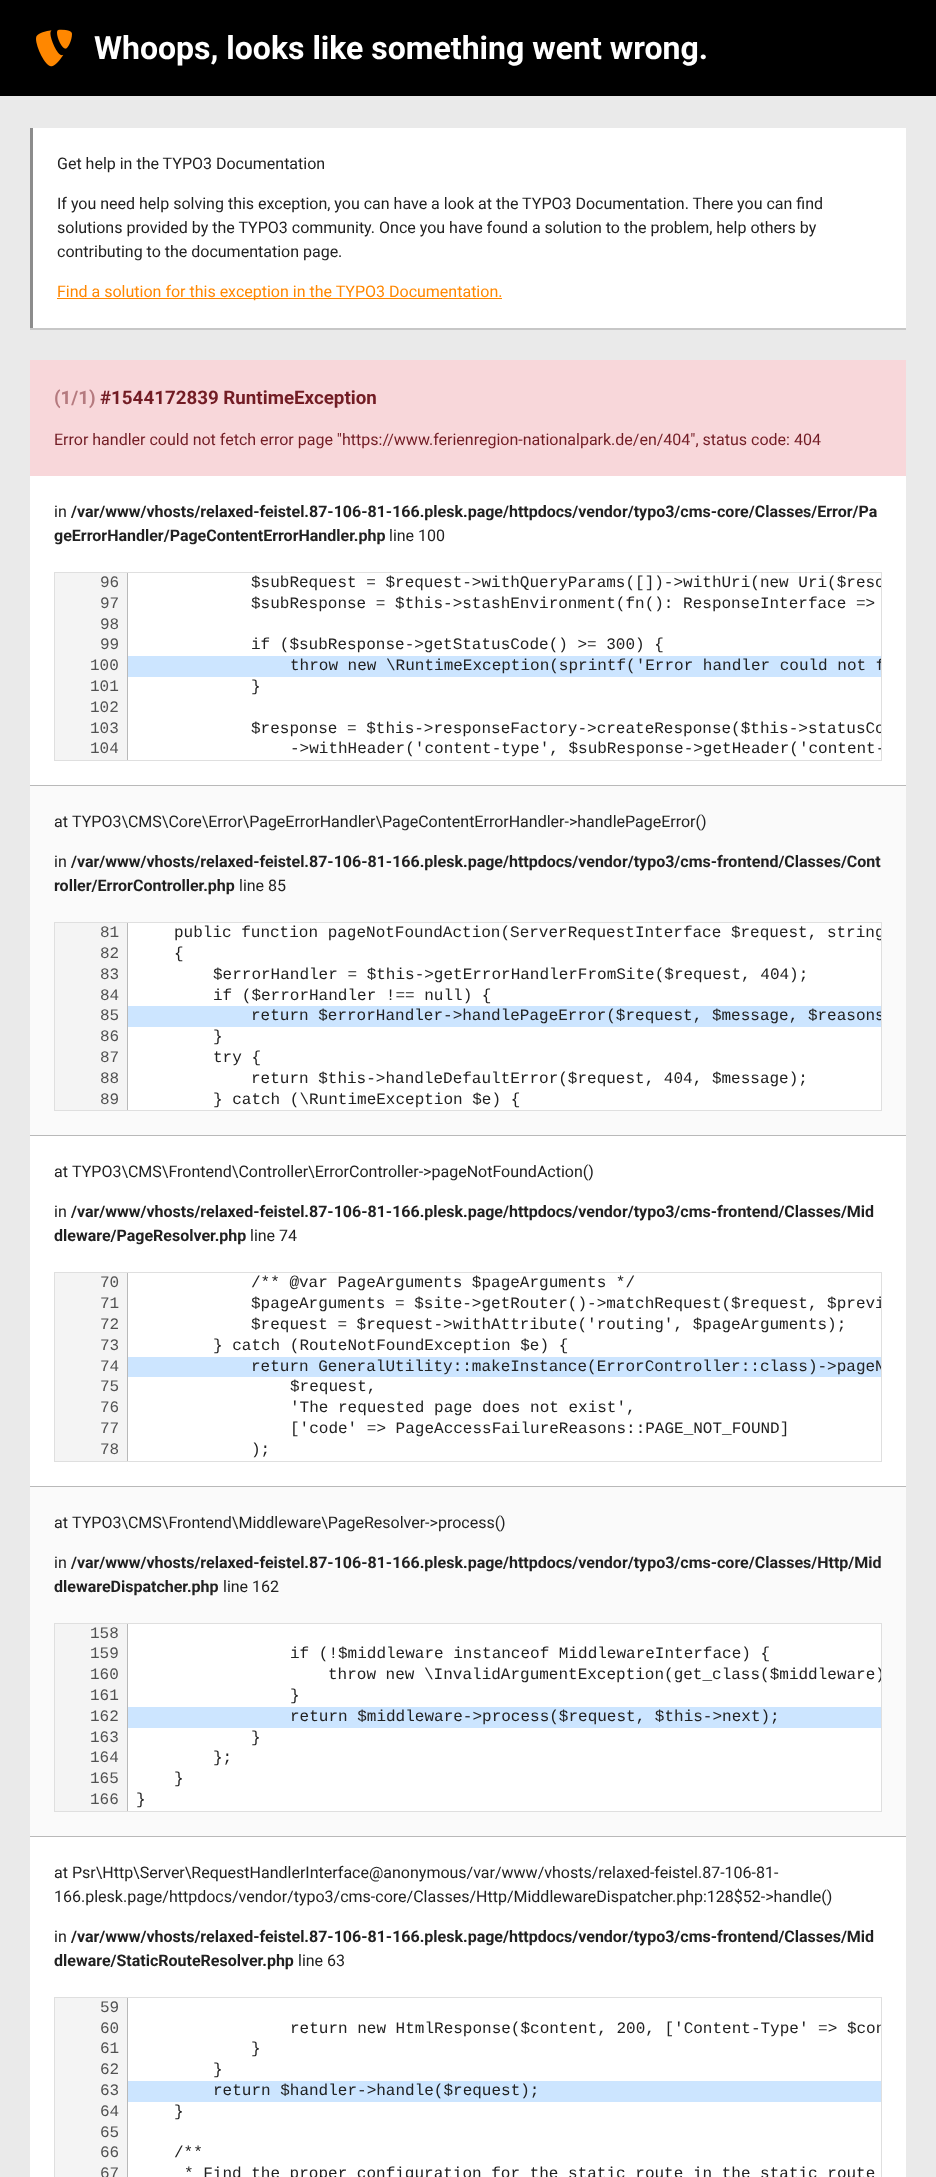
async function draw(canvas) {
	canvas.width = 936;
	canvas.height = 2177;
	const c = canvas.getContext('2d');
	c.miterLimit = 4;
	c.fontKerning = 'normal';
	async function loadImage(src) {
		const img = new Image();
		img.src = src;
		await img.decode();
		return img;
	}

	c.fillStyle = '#eaeaea';
	c.fillRect(0, 0, 936, 2177);
	c.fillStyle = '#000';
	c.fillRect(0, 0, 936, 96);
	c.drawImage(await loadImage('img1.png'), 36, 29, 36, 38);
	c.font = 'bold 32px Roboto';
	c.fillStyle = '#fff';
	c.fillText('Whoops, looks like something went wrong.', 94, 59);
	c.fillStyle = '#00000026';
	c.filter = 'blur(0.5px)';
	c.beginPath();
	c.rect(30, 130, 876, 200);
	c.fill();
	c.filter = 'none';
	c.fillStyle = '#fff';
	c.fillRect(33, 128, 873, 200);
	c.fillStyle = '#8c8c8c';
	c.fillRect(30, 128, 3, 200);
	c.font = '16px Roboto';
	c.fillStyle = '#212121';
	for (const [text, x, y] of [
		['Get help in the TYPO3 Documentation', 57, 169],
		['If you need help solving this exception, you can have a look at the TYPO3 Documentation. There you can find', 57, 209],
		['solutions provided by the TYPO3 community. Once you have found a solution to the problem, help others by', 57, 233],
		['contributing to the documentation page.', 57, 257],
	]) {
		c.fillText(text, x, y);
	}
	c.fillStyle = '#ff8700';
	c.fillRect(57, 298, 445, 1);
	c.fillText('Find a solution for this exception in the TYPO3 Documentation.', 57, 297);
	c.fillStyle = '#fff';
	c.fillRect(30, 476, 876, 1701);
	c.fillStyle = '#f8d7da';
	c.fillRect(30, 360, 876, 116);
	c.font = 'bold 18.75px Roboto';
	c.fillStyle = '#b57a7f';
	c.fillText('(1/1)', 54, 404);
	c.fillStyle = '#721c24';
	c.fillText('#1544172839 RuntimeException', 100, 404);
	c.font = '16px Roboto';
	c.fillText('Error handler could not fetch error page "https://www.ferienregion-nationalpark.de/en/404", status code: 404', 54, 445);
	c.fillStyle = '#b9b9b9';
	c.fillRect(30, 785, 876, 1);
	c.fillStyle = '#212121';
	c.fillText('in', 54, 517);
	c.font = 'bold 16px Roboto';
	c.fillText('/var/www/vhosts/relaxed-feistel.87-106-81-166.plesk.page/httpdocs/vendor/typo3/cms-core/Classes/Error/Pa', 71, 517);
	c.fillText('geErrorHandler/PageContentErrorHandler.php', 54, 541);
	c.font = '16px Roboto';
	c.fillText('line 100', 389, 541);
	c.strokeStyle = '#dfdfdf';
	c.strokeRect(54.5, 572.5, 827, 188);
	c.fillStyle = '#f4f4f4';
	c.fillRect(55, 573, 72, 187);
	c.fillStyle = '#b9b9b9';
	c.fillRect(127, 573, 1, 187);
	c.font = '16px Liberation Mono';
	c.fillStyle = '#515151';
	c.fillText('96', 100, 587);
	c.save();
	c.beginPath();
	c.rect(55, 573, 826, 187);
	c.clip();
	c.fillStyle = '#212121';
	c.fillText('$subRequest = $request->withQueryParams([])->withUri(new Uri($reso', 251, 587);
	c.restore();
	c.fillText('97', 100, 608);
	c.fillStyle = '#212121';
	c.fillText('$subResponse = $this->stashEnvironment(fn(): ResponseInterface =>', 251, 608);
	c.fillStyle = '#515151';
	c.fillText('98', 100, 629);
	c.fillText('99', 100, 649);
	c.fillStyle = '#212121';
	c.fillText('if ($subResponse->getStatusCode() >= 300) {', 251, 649);
	c.fillStyle = '#cce5ff';
	c.fillRect(128, 656, 753, 21);
	c.fillStyle = '#515151';
	c.fillText('100', 90, 670);
	c.save();
	c.beginPath();
	c.rect(55, 573, 826, 187);
	c.clip();
	c.fillStyle = '#212121';
	c.fillText('throw new \\RuntimeException(sprintf(\'Error handler could not f', 290, 670);
	c.restore();
	c.fillText('101', 90, 691);
	c.fillStyle = '#212121';
	c.fillText('}', 251, 691);
	c.fillStyle = '#515151';
	c.fillText('102', 90, 712);
	c.fillText('103', 90, 733);
	c.save();
	c.beginPath();
	c.rect(55, 573, 826, 187);
	c.clip();
	c.fillStyle = '#212121';
	c.fillText('$response = $this->responseFactory->createResponse($this->statusCo', 251, 733);
	c.restore();
	c.fillText('104', 90, 753);
	c.save();
	c.beginPath();
	c.rect(55, 573, 826, 187);
	c.clip();
	c.fillStyle = '#212121';
	c.fillText('->withHeader(\'content-type\', $subResponse->getHeader(\'content-', 290, 753);
	c.restore();
	c.fillStyle = '#fafafa';
	c.fillRect(30, 786, 876, 349);
	c.fillStyle = '#b9b9b9';
	c.fillRect(30, 1135, 876, 1);
	c.font = '16px Roboto';
	c.fillStyle = '#212121';
	for (const [text, x, y] of [
		['at', 54, 827],
		['TYPO3\\CMS\\Core\\Error\\PageErrorHandler\\PageContentErrorHandler->handlePageError()', 72, 827],
		['in', 54, 867],
	]) {
		c.fillText(text, x, y);
	}
	c.font = 'bold 16px Roboto';
	c.fillText('/var/www/vhosts/relaxed-feistel.87-106-81-166.plesk.page/httpdocs/vendor/typo3/cms-frontend/Classes/Cont', 71, 867);
	c.fillText('roller/ErrorController.php', 54, 891);
	c.font = '16px Roboto';
	c.fillText('line 85', 239, 891);
	c.fillStyle = '#fff';
	c.fillRect(128, 923, 753, 187);
	c.strokeRect(54.5, 922.5, 827, 188);
	c.fillStyle = '#f4f4f4';
	c.fillRect(55, 923, 72, 187);
	c.fillStyle = '#b9b9b9';
	c.fillRect(127, 923, 1, 187);
	c.font = '16px Liberation Mono';
	c.fillStyle = '#515151';
	c.fillText('81', 100, 937);
	c.save();
	c.beginPath();
	c.rect(55, 923, 826, 187);
	c.clip();
	c.fillStyle = '#212121';
	c.fillText('public function pageNotFoundAction(ServerRequestInterface $request, string', 174, 937);
	c.restore();
	c.fillText('82', 100, 958);
	c.fillStyle = '#212121';
	c.fillText('{', 174, 958);
	c.fillStyle = '#515151';
	c.fillText('83', 100, 979);
	c.fillStyle = '#212121';
	c.fillText('$errorHandler = $this->getErrorHandlerFromSite($request, 404);', 213, 979);
	c.fillStyle = '#515151';
	c.fillText('84', 100, 1000);
	c.fillStyle = '#212121';
	c.fillText('if ($errorHandler !== null) {', 213, 1000);
	c.fillStyle = '#cce5ff';
	c.fillRect(128, 1006, 753, 21);
	c.fillStyle = '#515151';
	c.fillText('85', 100, 1020);
	c.save();
	c.beginPath();
	c.rect(55, 923, 826, 187);
	c.clip();
	c.fillStyle = '#212121';
	c.fillText('return $errorHandler->handlePageError($request, $message, $reasons', 251, 1020);
	c.restore();
	c.fillText('86', 100, 1041);
	c.fillStyle = '#212121';
	c.fillText('}', 213, 1041);
	c.fillStyle = '#515151';
	c.fillText('87', 100, 1062);
	c.fillStyle = '#212121';
	c.fillText('try {', 213, 1062);
	c.fillStyle = '#515151';
	c.fillText('88', 100, 1083);
	c.fillStyle = '#212121';
	c.fillText('return $this->handleDefaultError($request, 404, $message);', 251, 1083);
	c.fillStyle = '#515151';
	c.fillText('89', 100, 1104);
	c.fillStyle = '#212121';
	c.fillText('} catch (\\RuntimeException $e) {', 213, 1104);
	c.fillStyle = '#b9b9b9';
	c.fillRect(30, 1486, 876, 1);
	c.font = '16px Roboto';
	c.fillStyle = '#212121';
	for (const [text, x, y] of [
		['at', 54, 1177],
		['TYPO3\\CMS\\Frontend\\Controller\\ErrorController->pageNotFoundAction()', 72, 1177],
		['in', 54, 1217],
	]) {
		c.fillText(text, x, y);
	}
	c.font = 'bold 16px Roboto';
	c.fillText('/var/www/vhosts/relaxed-feistel.87-106-81-166.plesk.page/httpdocs/vendor/typo3/cms-frontend/Classes/Mid', 71, 1217);
	c.fillText('dleware/PageResolver.php', 54, 1241);
	c.font = '16px Roboto';
	c.fillText('line 74', 250, 1241);
	c.strokeRect(54.5, 1272.5, 827, 189);
	c.fillStyle = '#f4f4f4';
	c.fillRect(55, 1273, 72, 188);
	c.fillStyle = '#b9b9b9';
	c.fillRect(127, 1273, 1, 188);
	c.font = '16px Liberation Mono';
	c.fillStyle = '#515151';
	c.fillText('70', 100, 1287);
	c.fillStyle = '#212121';
	c.fillText('/** @var PageArguments $pageArguments */', 251, 1287);
	c.fillStyle = '#515151';
	c.fillText('71', 100, 1308);
	c.save();
	c.beginPath();
	c.rect(55, 1273, 826, 188);
	c.clip();
	c.fillStyle = '#212121';
	c.fillText('$pageArguments = $site->getRouter()->matchRequest($request, $previ', 251, 1308);
	c.restore();
	c.fillText('72', 100, 1329);
	c.fillStyle = '#212121';
	c.fillText('$request = $request->withAttribute(\'routing\', $pageArguments);', 251, 1329);
	c.fillStyle = '#515151';
	c.fillText('73', 100, 1350);
	c.fillStyle = '#212121';
	c.fillText('} catch (RouteNotFoundException $e) {', 213, 1350);
	c.fillStyle = '#cce5ff';
	c.fillRect(128, 1357, 753, 20);
	c.fillStyle = '#515151';
	c.fillText('74', 100, 1371);
	c.save();
	c.beginPath();
	c.rect(55, 1273, 826, 188);
	c.clip();
	c.fillStyle = '#212121';
	c.fillText('return GeneralUtility::makeInstance(ErrorController::class)->pageN', 251, 1371);
	c.restore();
	c.fillText('75', 100, 1391);
	c.fillStyle = '#212121';
	c.fillText('$request,', 290, 1391);
	c.fillStyle = '#515151';
	c.fillText('76', 100, 1412);
	c.fillStyle = '#212121';
	c.fillText('\'The requested page does not exist\',', 290, 1412);
	c.fillStyle = '#515151';
	c.fillText('77', 100, 1433);
	c.fillStyle = '#212121';
	c.fillText('[\'code\' => PageAccessFailureReasons::PAGE_NOT_FOUND]', 290, 1433);
	c.fillStyle = '#515151';
	c.fillText('78', 100, 1454);
	c.fillStyle = '#212121';
	c.fillText(');', 251, 1454);
	c.fillStyle = '#fafafa';
	c.fillRect(30, 1487, 876, 349);
	c.fillStyle = '#b9b9b9';
	c.fillRect(30, 1836, 876, 1);
	c.font = '16px Roboto';
	c.fillStyle = '#212121';
	for (const [text, x, y] of [
		['at', 54, 1528],
		['TYPO3\\CMS\\Frontend\\Middleware\\PageResolver->process()', 72, 1528],
		['in', 54, 1568],
	]) {
		c.fillText(text, x, y);
	}
	c.font = 'bold 16px Roboto';
	c.fillText('/var/www/vhosts/relaxed-feistel.87-106-81-166.plesk.page/httpdocs/vendor/typo3/cms-core/Classes/Http/Mid', 71, 1568);
	c.fillText('dlewareDispatcher.php', 54, 1592);
	c.font = '16px Roboto';
	c.fillText('line 162', 223, 1592);
	c.fillStyle = '#fff';
	c.fillRect(128, 1624, 753, 187);
	c.strokeRect(54.5, 1623.5, 827, 188);
	c.fillStyle = '#f4f4f4';
	c.fillRect(55, 1624, 72, 187);
	c.fillStyle = '#b9b9b9';
	c.fillRect(127, 1624, 1, 187);
	c.font = '16px Liberation Mono';
	c.fillStyle = '#515151';
	c.fillText('158', 90, 1638);
	c.fillText('159', 90, 1658);
	c.fillStyle = '#212121';
	c.fillText('if (!$middleware instanceof MiddlewareInterface) {', 290, 1658);
	c.fillStyle = '#515151';
	c.fillText('160', 90, 1679);
	c.save();
	c.beginPath();
	c.rect(55, 1624, 826, 187);
	c.clip();
	c.fillStyle = '#212121';
	c.fillText('throw new \\InvalidArgumentException(get_class($middleware)', 328, 1679);
	c.restore();
	c.fillText('161', 90, 1700);
	c.fillStyle = '#212121';
	c.fillText('}', 290, 1700);
	c.fillStyle = '#cce5ff';
	c.fillRect(128, 1707, 753, 21);
	c.fillStyle = '#515151';
	c.fillText('162', 90, 1721);
	c.fillStyle = '#212121';
	c.fillText('return $middleware->process($request, $this->next);', 290, 1721);
	c.fillStyle = '#515151';
	c.fillText('163', 90, 1742);
	c.fillStyle = '#212121';
	c.fillText('}', 251, 1742);
	c.fillStyle = '#515151';
	c.fillText('164', 90, 1762);
	c.fillStyle = '#212121';
	c.fillText('};', 213, 1762);
	c.fillStyle = '#515151';
	c.fillText('165', 90, 1783);
	c.fillStyle = '#212121';
	c.fillText('}', 174, 1783);
	c.fillStyle = '#515151';
	c.fillText('166', 90, 1804);
	c.fillStyle = '#212121';
	c.fillText('}', 136, 1804);
	c.font = '16px Roboto';
	for (const [text, x, y] of [
		['at Psr\\Http\\Server\\RequestHandlerInterface@anonymous/var/www/vhosts/relaxed-feistel.87-106-81-', 54, 1878],
		['166.plesk.page/httpdocs/vendor/typo3/cms-core/Classes/Http/MiddlewareDispatcher.php:128$52->handle()', 54, 1902],
		['in', 54, 1942],
	]) {
		c.fillText(text, x, y);
	}
	c.font = 'bold 16px Roboto';
	c.fillText('/var/www/vhosts/relaxed-feistel.87-106-81-166.plesk.page/httpdocs/vendor/typo3/cms-frontend/Classes/Mid', 71, 1942);
	c.fillText('dleware/StaticRouteResolver.php', 54, 1966);
	c.font = '16px Roboto';
	c.fillText('line 63', 298, 1966);
	c.strokeRect(54.5, 1997.5, 827, 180);
	c.fillStyle = '#f4f4f4';
	c.fillRect(55, 1998, 72, 179);
	c.fillStyle = '#b9b9b9';
	c.fillRect(127, 1998, 1, 179);
	c.font = '16px Liberation Mono';
	c.fillStyle = '#515151';
	c.fillText('59', 100, 2012);
	c.fillText('60', 100, 2033);
	c.save();
	c.beginPath();
	c.rect(55, 1998, 826, 179);
	c.clip();
	c.fillStyle = '#212121';
	c.fillText('return new HtmlResponse($content, 200, [\'Content-Type\' => $con', 290, 2033);
	c.restore();
	c.fillText('61', 100, 2053);
	c.fillStyle = '#212121';
	c.fillText('}', 251, 2053);
	c.fillStyle = '#515151';
	c.fillText('62', 100, 2074);
	c.fillStyle = '#212121';
	c.fillText('}', 213, 2074);
	c.fillStyle = '#cce5ff';
	c.fillRect(128, 2081, 753, 21);
	c.fillStyle = '#515151';
	c.fillText('63', 100, 2095);
	c.fillStyle = '#212121';
	c.fillText('return $handler->handle($request);', 213, 2095);
	c.fillStyle = '#515151';
	c.fillText('64', 100, 2116);
	c.fillStyle = '#212121';
	c.fillText('}', 174, 2116);
	c.fillStyle = '#515151';
	c.fillText('65', 100, 2137);
	c.fillText('66', 100, 2157);
	c.fillStyle = '#212121';
	c.fillText('/**', 174, 2157);
	c.fillStyle = '#515151';
	c.fillText('67', 100, 2178);
	c.fillStyle = '#212121';
	c.fillText('* Find the proper configuration for the static route in the static route', 184, 2178);
}

draw(document.querySelector('canvas'));
